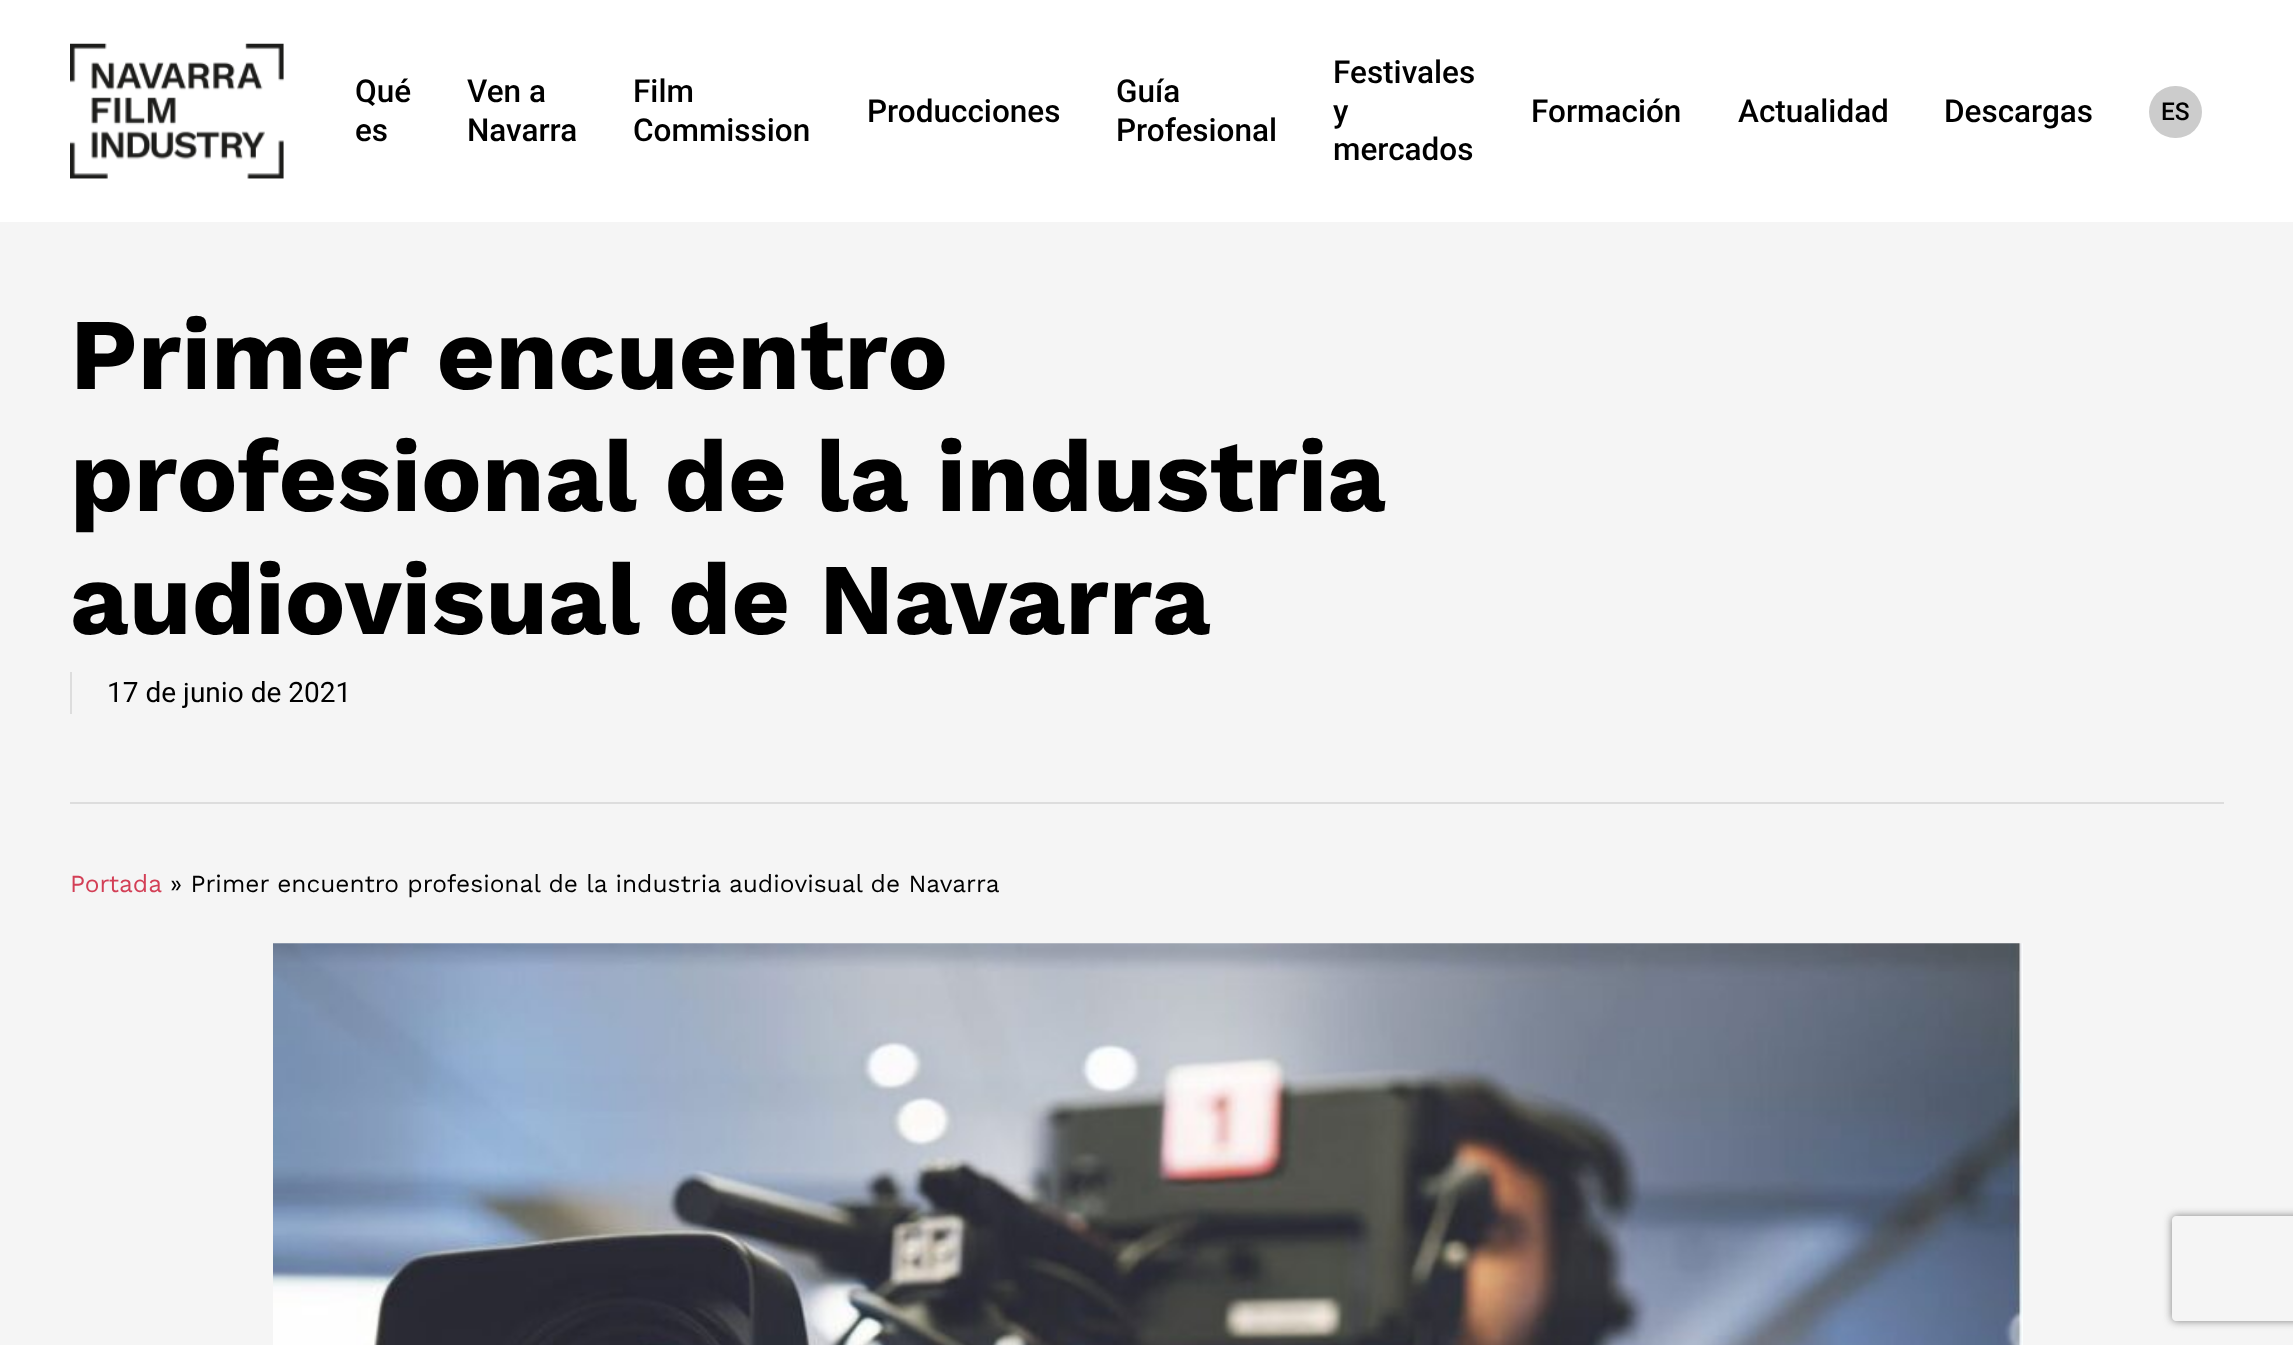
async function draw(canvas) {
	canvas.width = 2293;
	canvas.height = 1345;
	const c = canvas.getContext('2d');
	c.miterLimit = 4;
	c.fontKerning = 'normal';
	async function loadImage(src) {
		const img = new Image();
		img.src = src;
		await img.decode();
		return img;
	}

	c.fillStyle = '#fff';
	c.fillRect(0, 0, 2293, 1345);
	c.drawImage(await loadImage('img1.png'), 70, 43, 214, 136);
	c.font = '500 31.5px Roboto';
	c.fillStyle = '#000';
	for (const [text, x, y] of [
		['Qué', 355, 102],
		['es', 355, 141],
		['Ven a', 467, 102],
		['Navarra', 467, 141],
		['Film', 633, 102],
		['Commission', 633, 141],
		['Producciones', 867, 122],
		['Guía', 1116, 102],
		['Profesional', 1116, 141],
		['Festivales', 1333, 83],
		['y', 1333, 122],
		['mercados', 1333, 160],
		['Formación', 1531, 122],
		['Actualidad', 1738, 122],
		['Descargas', 1944, 122],
	]) {
		c.fillText(text, x, y);
	}
	c.fillStyle = '#ccc';
	c.beginPath();
	c.roundRect(2149, 86, 53, 52, 26);
	c.fill();
	c.font = '500 24.5px Roboto';
	c.fillStyle = '#000';
	c.fillText('ES', 2161, 120);
	c.fillStyle = '#f5f5f5';
	c.fillRect(0, 222, 2293, 1123);
	c.fillStyle = '#ddd';
	c.fillRect(70, 802, 2154, 2);
	c.font = 'bold 101.5px Work Sans';
	c.fillStyle = '#000';
	for (const [text, x, y] of [
		['Primer encuentro', 70, 389],
		['profesional de la industria', 70, 511],
		['audiovisual de Navarra', 70, 634],
	]) {
		c.fillText(text, x, y);
	}
	c.font = '28px Heebo';
	c.fillText('17 de junio de 2021', 107, 702);
	c.fillStyle = '#ddd';
	c.fillRect(70, 672, 2, 42);
	c.font = '24.5px Work Sans';
	c.fillStyle = '#d33f56';
	c.fillText('Portada', 70, 892);
	c.fillStyle = '#000';
	c.fillText('» Primer encuentro profesional de la industria audiovisual de Navarra', 170, 892);
	c.drawImage(await loadImage('img2.png'), 273, 943, 1750, 402);
	c.save();
	c.beginPath();
	c.moveTo(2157, 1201);
	c.lineTo(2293, 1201);
	c.lineTo(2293, 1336);
	c.lineTo(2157, 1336);
	c.closePath();
	c.moveTo(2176, 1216);
	c.lineTo(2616, 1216);
	c.bezierCurveTo(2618, 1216, 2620, 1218, 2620, 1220);
	c.lineTo(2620, 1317);
	c.bezierCurveTo(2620, 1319, 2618, 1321, 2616, 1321);
	c.lineTo(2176, 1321);
	c.bezierCurveTo(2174, 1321, 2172, 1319, 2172, 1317);
	c.lineTo(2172, 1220);
	c.bezierCurveTo(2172, 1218, 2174, 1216, 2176, 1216);
	c.closePath();
	c.clip('evenodd');
	c.fillStyle = '#808080';
	c.filter = 'blur(4.5px)';
	c.beginPath();
	c.roundRect(2172, 1216, 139, 105, 4);
	c.fill();
	c.filter = 'none';
	c.restore();
}

draw(document.querySelector('canvas'));
